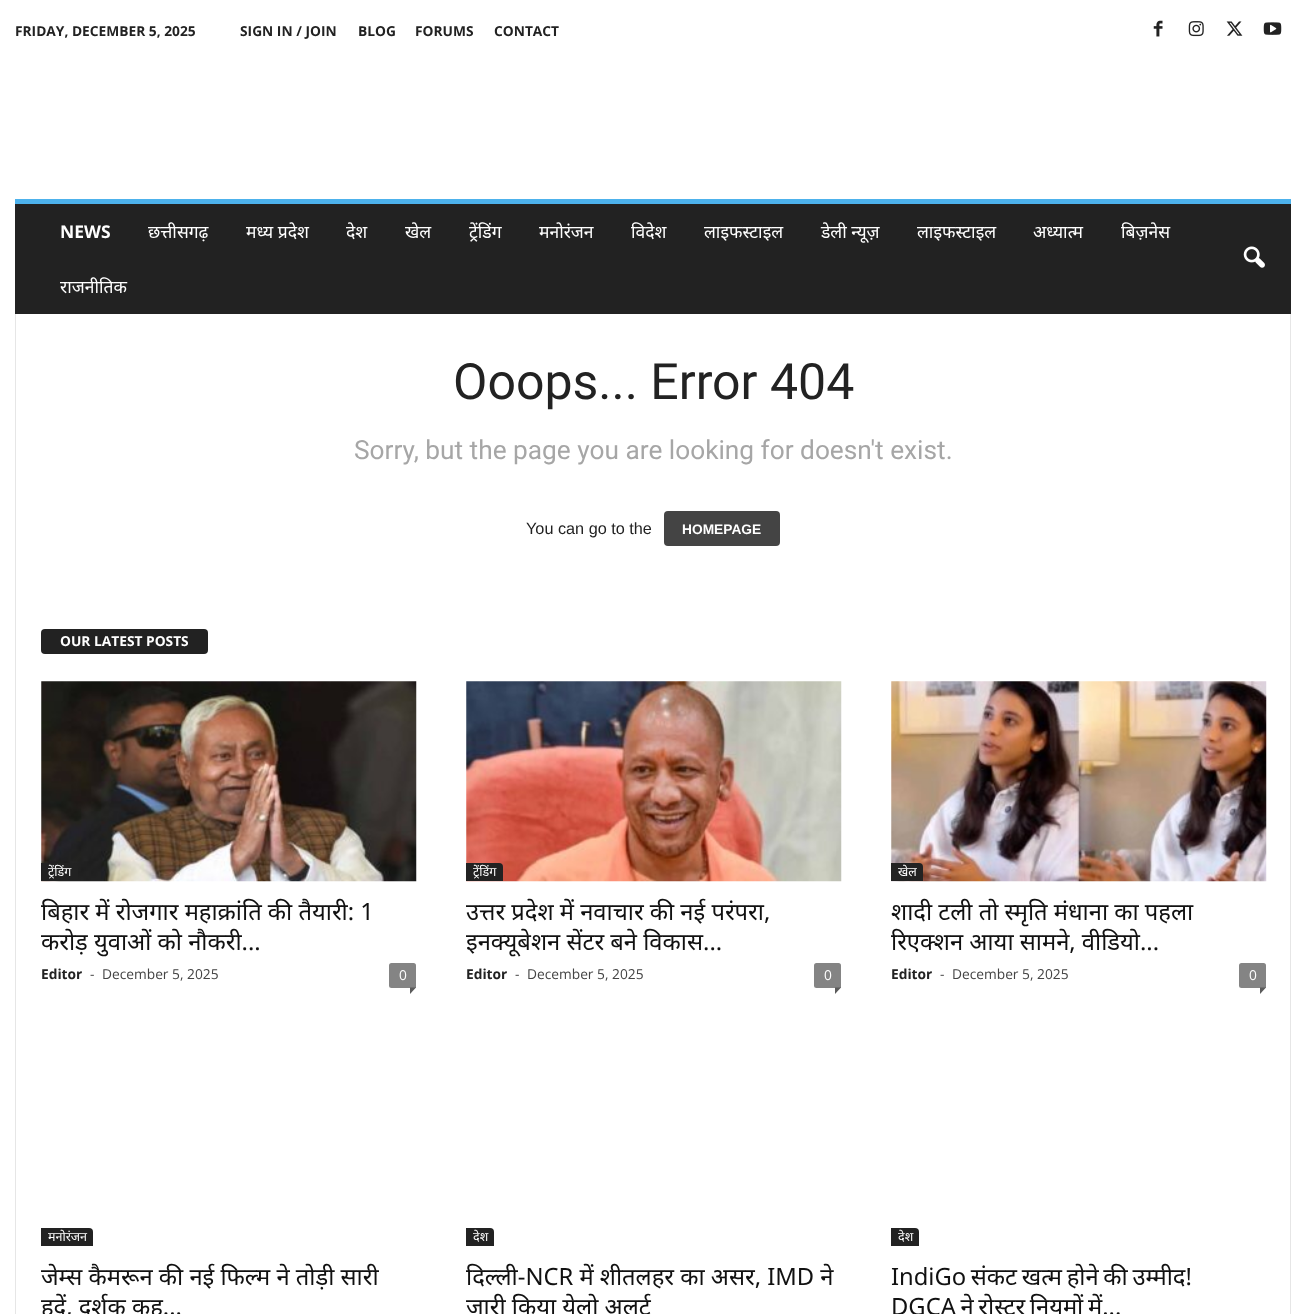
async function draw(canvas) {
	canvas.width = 1306;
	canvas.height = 1314;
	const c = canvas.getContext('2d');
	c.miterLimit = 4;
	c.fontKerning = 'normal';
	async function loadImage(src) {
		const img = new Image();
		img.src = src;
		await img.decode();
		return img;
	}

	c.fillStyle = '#fff';
	c.fillRect(0, 0, 1306, 1314);
	c.font = 'bold 13.75px Open Sans';
	c.fillStyle = '#222';
	for (const [text, x, y] of [
		['FRIDAY, DECEMBER 5, 2025', 15, 36],
		['SIGN IN / JOIN', 240, 36],
		['BLOG', 358, 36],
		['FORUMS', 415, 36],
		['CONTACT', 494, 36],
	]) {
		c.fillText(text, x, y);
	}
	c.drawImage(await loadImage('img1.png'), 1153, 20, 10, 17);
	c.drawImage(await loadImage('img2.png'), 1188, 21, 16, 16);
	c.drawImage(await loadImage('img3.png'), 1226, 21, 17, 15);
	c.drawImage(await loadImage('img4.png'), 1263, 22, 19, 13);
	c.fillRect(15, 204, 1276, 110);
	c.fillStyle = '#4db2ec';
	c.fillRect(15, 199, 1276, 5);
	c.font = 'bold 17.5px Open Sans';
	c.fillStyle = '#fff';
	c.fillText('NEWS', 60, 238);
	c.font = '17.5px Noto Sans';
	for (const [text, x, y] of [
		['छत्तीसगढ़', 148, 238],
		['मध्य प्रदेश', 246, 238],
		['देश', 346, 238],
		['खेल', 405, 238],
		['ट्रेंडिंग', 469, 238],
		['मनोरंजन', 539, 238],
		['विदेश', 631, 238],
		['लाइफस्टाइल', 704, 238],
		['डेली न्यूज़', 821, 238],
		['लाइफस्टाइल', 917, 238],
		['अध्यात्म', 1033, 238],
		['बिज़नेस', 1121, 238],
		['राजनीतिक', 60, 293],
	]) {
		c.fillText(text, x, y);
	}
	c.drawImage(await loadImage('img5.png'), 1243, 246, 22, 22);
	c.fillStyle = '#e6e6e6';
	c.fillRect(15, 314, 1, 1000);
	c.font = '50px Roboto';
	c.fillStyle = '#222';
	c.fillText('Ooops... Error 404', 453, 399);
	c.font = '26.25px Roboto';
	c.fillStyle = '#a6a6a6';
	c.fillText('Sorry, but the page you are looking for doesn\'t exist.', 354, 459);
	c.font = '16.25px Liberation Sans';
	c.fillStyle = '#222';
	c.fillText('You can go to the', 526, 534);
	c.fillStyle = '#444';
	c.beginPath();
	c.roundRect(664, 511, 116, 35, 4);
	c.fill();
	c.font = 'bold 13.75px Liberation Sans';
	c.fillStyle = '#fff';
	c.fillText('HOMEPAGE', 682, 534);
	c.fillStyle = '#222';
	c.beginPath();
	c.roundRect(41, 629, 167, 25, 4);
	c.fill();
	c.font = 'bold 13.75px Open Sans';
	c.fillStyle = '#fff';
	c.fillText('OUR LATEST POSTS', 60, 646);
	c.drawImage(await loadImage('img6.png'), 41, 681, 376, 201);
	c.fillStyle = '#222';
	c.beginPath();
	c.roundRect(41, 863, 37, 18, [0, 4, 0, 0]);
	c.fill();
	c.font = '12.5px Noto Sans';
	c.fillStyle = '#fff';
	c.fillText('ट्रेंडिंग', 48, 876);
	c.font = '23.75px Noto Sans';
	c.fillStyle = '#111';
	c.fillText('बिहार में रोजगार महाक्रांति की तैयारी: 1', 41, 920);
	c.fillText('करोड़ युवाओं को नौकरी...', 41, 950);
	c.font = 'bold 13.75px Open Sans';
	c.fillStyle = '#222';
	c.fillText('Editor', 41, 979);
	c.font = '13.75px Open Sans';
	c.fillStyle = '#444';
	c.fillText('-', 90, 979);
	c.fillText('December 5, 2025', 102, 979);
	c.fillStyle = '#848484';
	c.beginPath();
	c.roundRect(389, 963, 27, 25, [2.5, 2.5, 0, 2.5]);
	c.fill();
	c.fillStyle = '#fff';
	c.fillText('0', 399, 980);
	c.fillStyle = '#5b5b5b';
	c.beginPath();
	c.moveTo(410, 987.5);
	c.lineTo(416, 987.5);
	c.lineTo(410, 994);
	c.closePath();
	c.fill();
	c.drawImage(await loadImage('img7.png'), 466, 681, 376, 201);
	c.fillStyle = '#222';
	c.beginPath();
	c.roundRect(466, 863, 37, 18, [0, 4, 0, 0]);
	c.fill();
	c.font = '12.5px Noto Sans';
	c.fillStyle = '#fff';
	c.fillText('ट्रेंडिंग', 473, 876);
	c.font = '23.75px Noto Sans';
	c.fillStyle = '#111';
	c.fillText('उत्तर प्रदेश में नवाचार की नई परंपरा,', 466, 920);
	c.fillText('इनक्यूबेशन सेंटर बने विकास...', 466, 950);
	c.font = 'bold 13.75px Open Sans';
	c.fillStyle = '#222';
	c.fillText('Editor', 466, 979);
	c.font = '13.75px Open Sans';
	c.fillStyle = '#444';
	c.fillText('-', 515, 979);
	c.fillText('December 5, 2025', 527, 979);
	c.fillStyle = '#848484';
	c.beginPath();
	c.roundRect(814, 963, 27, 25, [2.5, 2.5, 0, 2.5]);
	c.fill();
	c.fillStyle = '#fff';
	c.fillText('0', 824, 980);
	c.fillStyle = '#5b5b5b';
	c.beginPath();
	c.moveTo(835, 987.5);
	c.lineTo(841, 987.5);
	c.lineTo(835, 994);
	c.closePath();
	c.fill();
	c.drawImage(await loadImage('img8.png'), 891, 681, 376, 201);
	c.fillStyle = '#222';
	c.beginPath();
	c.roundRect(891, 863, 32, 18, [0, 4, 0, 0]);
	c.fill();
	c.font = '12.5px Noto Sans';
	c.fillStyle = '#fff';
	c.fillText('खेल', 898, 876);
	c.font = '23.75px Noto Sans';
	c.fillStyle = '#111';
	c.fillText('शादी टली तो स्मृति मंधाना का पहला', 891, 920);
	c.fillText('रिएक्शन आया सामने, वीडियो...', 891, 950);
	c.font = 'bold 13.75px Open Sans';
	c.fillStyle = '#222';
	c.fillText('Editor', 891, 979);
	c.font = '13.75px Open Sans';
	c.fillStyle = '#444';
	c.fillText('-', 940, 979);
	c.fillText('December 5, 2025', 952, 979);
	c.fillStyle = '#848484';
	c.beginPath();
	c.roundRect(1239, 963, 27, 25, [2.5, 2.5, 0, 2.5]);
	c.fill();
	c.fillStyle = '#fff';
	c.fillText('0', 1249, 980);
	c.fillStyle = '#5b5b5b';
	c.beginPath();
	c.moveTo(1260, 987.5);
	c.lineTo(1266, 987.5);
	c.lineTo(1260, 994);
	c.closePath();
	c.fill();
	c.fillStyle = '#222';
	c.beginPath();
	c.roundRect(41, 1228, 52, 18, [0, 4, 0, 0]);
	c.fill();
	c.font = '12.5px Noto Sans';
	c.fillStyle = '#fff';
	c.fillText('मनोरंजन', 48, 1241);
	c.font = '23.75px Noto Sans';
	c.fillStyle = '#111';
	c.fillText('जेम्स कैमरून की नई फिल्म ने तोड़ी सारी', 41, 1285);
	c.fillText('हदें, दर्शक कह...', 41, 1315);
	c.fillStyle = '#222';
	c.beginPath();
	c.roundRect(466, 1228, 28, 18, [0, 4, 0, 0]);
	c.fill();
	c.font = '12.5px Noto Sans';
	c.fillStyle = '#fff';
	c.fillText('देश', 473, 1241);
	c.font = '23.75px Noto Sans';
	c.fillStyle = '#111';
	c.fillText('दिल्ली-NCR में शीतलहर का असर, IMD ने', 466, 1285);
	c.fillText('जारी किया येलो अलर्ट', 466, 1315);
	c.fillStyle = '#222';
	c.beginPath();
	c.roundRect(891, 1228, 28, 18, [0, 4, 0, 0]);
	c.fill();
	c.font = '12.5px Noto Sans';
	c.fillStyle = '#fff';
	c.fillText('देश', 898, 1241);
	c.wordSpacing = '-1.5px';
	c.font = '23.75px Noto Sans';
	c.fillStyle = '#111';
	c.fillText('IndiGo संकट खत्म होने की उम्मीद!', 891, 1285);
	c.fillText('DGCA ने रोस्टर नियमों में...', 891, 1315);
	c.fillStyle = '#e6e6e6';
	c.fillRect(1290, 314, 1, 1000);
}

draw(document.querySelector('canvas'));
